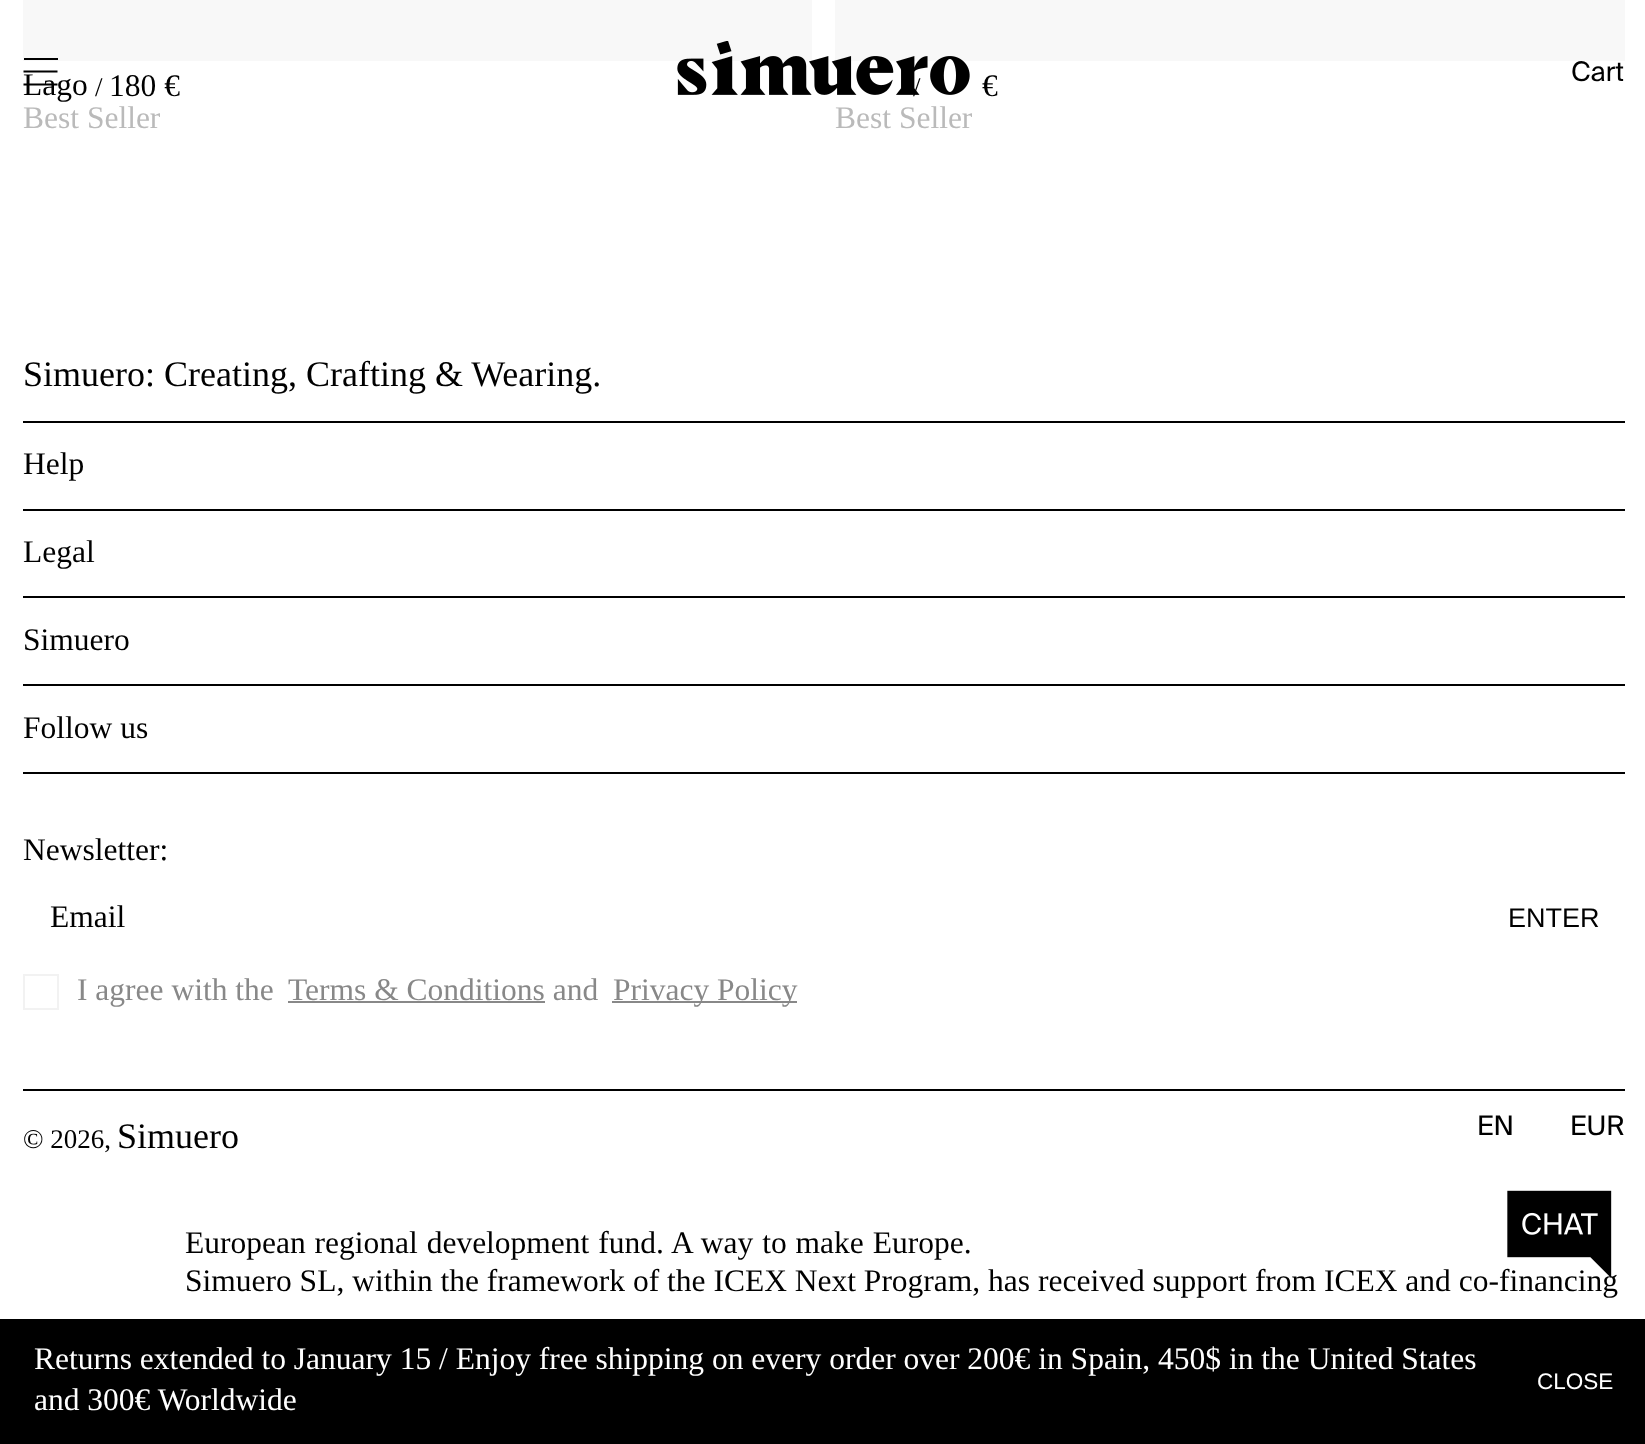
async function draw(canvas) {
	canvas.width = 1645;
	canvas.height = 1444;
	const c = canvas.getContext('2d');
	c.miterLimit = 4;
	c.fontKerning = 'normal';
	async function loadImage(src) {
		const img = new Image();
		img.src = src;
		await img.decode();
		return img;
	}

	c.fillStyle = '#fff';
	c.fillRect(0, 0, 1645, 1444);
	c.fillStyle = '#f8f8f8';
	c.fillRect(23, 0, 789, 61);
	c.fillStyle = '#000';
	c.fillRect(24, 58, 34, 2);
	c.beginPath();
	c.moveTo(23.5, 71.5);
	c.lineTo(57.5, 71.5);
	c.moveTo(23.5, 84.5);
	c.lineTo(57.5, 84.5);
	c.strokeStyle = '#000';
	c.lineWidth = 2.1;
	c.stroke();
	c.fillStyle = '#f8f8f8';
	c.fillRect(835, 0, 790, 61);
	c.font = '27px Liberation Serif';
	c.fillStyle = '#000';
	c.fillText('/', 913, 96);
	c.drawImage(await loadImage('img1.png'), 677, 41, 293, 54);
	c.font = '27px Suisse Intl';
	c.fillText('Cart', 1571, 81);
	c.font = '31.5px Liberation Serif';
	c.fillText('Lago', 23, 95);
	c.font = '27px Liberation Serif';
	c.fillText('/', 95, 96);
	c.font = '31.5px Liberation Serif';
	c.fillText('180 €', 109, 96);
	c.fillStyle = '#bababa';
	c.fillText('Best Seller', 23, 128);
	c.fillStyle = '#000';
	c.fillText('€', 982, 96);
	c.fillStyle = '#bababa';
	c.fillText('Best Seller', 835, 128);
	c.font = '36px Liberation Serif';
	c.fillStyle = '#000';
	c.fillText('Simuero: Creating, Crafting & Wearing.', 23, 386);
	c.fillRect(23, 421, 1602, 2);
	c.fillRect(23, 509, 1602, 2);
	c.font = '31.5px Liberation Serif';
	c.fillText('Help', 23, 474);
	c.fillRect(23, 596, 1602, 2);
	c.fillText('Legal', 23, 562);
	c.fillRect(23, 684, 1602, 2);
	c.fillText('Simuero', 23, 650);
	c.fillRect(23, 772, 1602, 2);
	for (const [text, x, y] of [
		['Follow us', 23, 738],
		['Newsletter:', 23, 860],
		['Email', 50, 927],
	]) {
		c.fillText(text, x, y);
	}
	c.font = '27px Liberation Sans';
	c.fillText('ENTER', 1508, 927);
	c.strokeStyle = '#f2f2f2';
	c.lineWidth = 2;
	c.strokeRect(24, 975, 34, 34);
	c.font = '31.5px Liberation Serif';
	c.fillStyle = '#888';
	c.fillText('I agree with the', 77, 1000);
	c.fillText('Terms & Conditions and', 288, 1000);
	c.fillRect(288, 1001, 257, 2);
	c.fillRect(612, 1001, 185, 2);
	c.fillText('Privacy Policy', 613, 1000);
	c.fillStyle = '#000';
	c.fillRect(23, 1089, 1602, 2);
	c.font = '27px Liberation Serif';
	c.fillText('© 2026,', 23, 1148);
	c.font = '36px Liberation Serif';
	c.fillText('Simuero', 117, 1148);
	c.font = '27px Suisse Intl';
	c.fillText('EN', 1477, 1135);
	c.fillText('EUR', 1570, 1135);
	c.font = '31.5px Liberation Serif';
	c.fillText('Simuero SL, within the framework of the ICEX Next Program, has received support from ICEX and co-financing', 185, 1291);
	c.drawImage(await loadImage('img2.png'), 1507, 1190, 105, 88);
	c.wordSpacing = '1px';
	c.fillText('European regional development fund. A way to make Europe.', 185, 1253);
	c.fillRect(0, 1319, 1645, 125);
	c.wordSpacing = '0px';
	c.fillStyle = '#fff';
	c.fillText('Returns extended to January 15 / Enjoy free shipping on every order over 200€ in Spain, 450$ in the United States', 34, 1369);
	c.fillText('and 300€ Worldwide', 34, 1410);
	c.font = '22.5px Liberation Sans';
	c.fillText('CLOSE', 1537, 1389);
}

draw(document.querySelector('canvas'));
